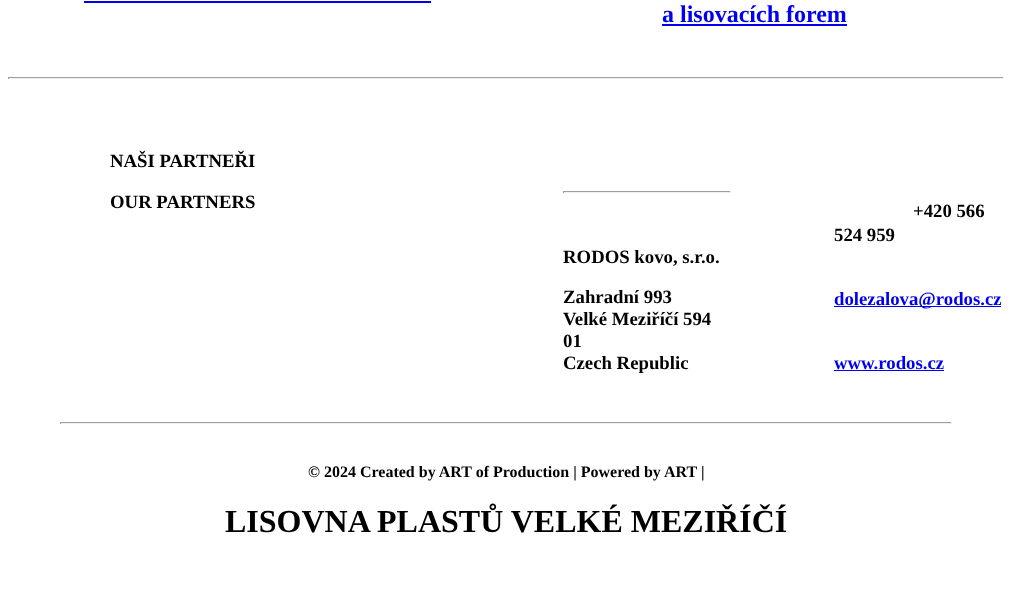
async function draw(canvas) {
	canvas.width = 1012;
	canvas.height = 605;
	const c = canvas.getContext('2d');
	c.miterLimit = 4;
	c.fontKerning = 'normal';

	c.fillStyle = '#fff';
	c.fillRect(0, 0, 1012, 605);
	c.fillStyle = '#00e';
	c.fillRect(84, 1, 347, 2);
	c.font = 'bold 24px Liberation Serif';
	c.fillText('a lisovacích forem', 662, 22);
	for (const [x, y, w, h, color] of [
		[662, 24, 185, 2, '#00e'],
		[8, 77, 996, 1, '#9f9f9f'],
		[1003, 77, 1, 2, '#eee'],
		[8, 78, 996, 1, '#eee'],
		[8, 77, 1, 2, '#9f9f9f'],
	]) {
		c.fillStyle = color;
		c.fillRect(x, y, w, h);
	}
	c.font = 'bold 18.75px Liberation Serif';
	c.fillStyle = '#000';
	c.fillText('NAŠI PARTNEŘI', 110, 167);
	c.fillText('OUR PARTNERS', 110, 208);
	for (const [x, y, w, h, color] of [
		[563, 191, 168, 1, '#9f9f9f'],
		[730, 191, 1, 2, '#eee'],
		[563, 192, 168, 1, '#eee'],
		[563, 191, 1, 2, '#9f9f9f'],
	]) {
		c.fillStyle = color;
		c.fillRect(x, y, w, h);
	}
	c.fillStyle = '#000';
	for (const [text, x, y] of [
		['RODOS kovo, s.r.o.', 563, 263],
		['Zahradní 993', 563, 303],
		['Velké Meziříčí 594', 563, 325],
		['01', 563, 347],
		['Czech Republic', 563, 369],
		['+420 566', 913, 217],
		['524 959', 834, 241],
	]) {
		c.fillText(text, x, y);
	}
	c.fillStyle = '#00e';
	c.fillRect(834, 306, 167, 1);
	c.fillText('dolezalova@rodos.cz', 834, 305);
	c.fillText('www.rodos.cz', 834, 369);
	for (const [x, y, w, h, color] of [
		[834, 370, 110, 1, '#00e'],
		[60, 422, 892, 1, '#9f9f9f'],
		[951, 422, 1, 2, '#eee'],
		[60, 423, 892, 1, '#eee'],
		[60, 422, 1, 2, '#9f9f9f'],
	]) {
		c.fillStyle = color;
		c.fillRect(x, y, w, h);
	}
	c.font = 'bold 16px Liberation Serif';
	c.fillStyle = '#000';
	c.fillText('© 2024 Created by ART of Production | Powered by ART |', 308, 477);
	c.font = 'bold 32px Liberation Serif';
	c.fillText('LISOVNA PLASTŮ VELKÉ MEZIŘÍČÍ', 225, 532);
}

draw(document.querySelector('canvas'));
